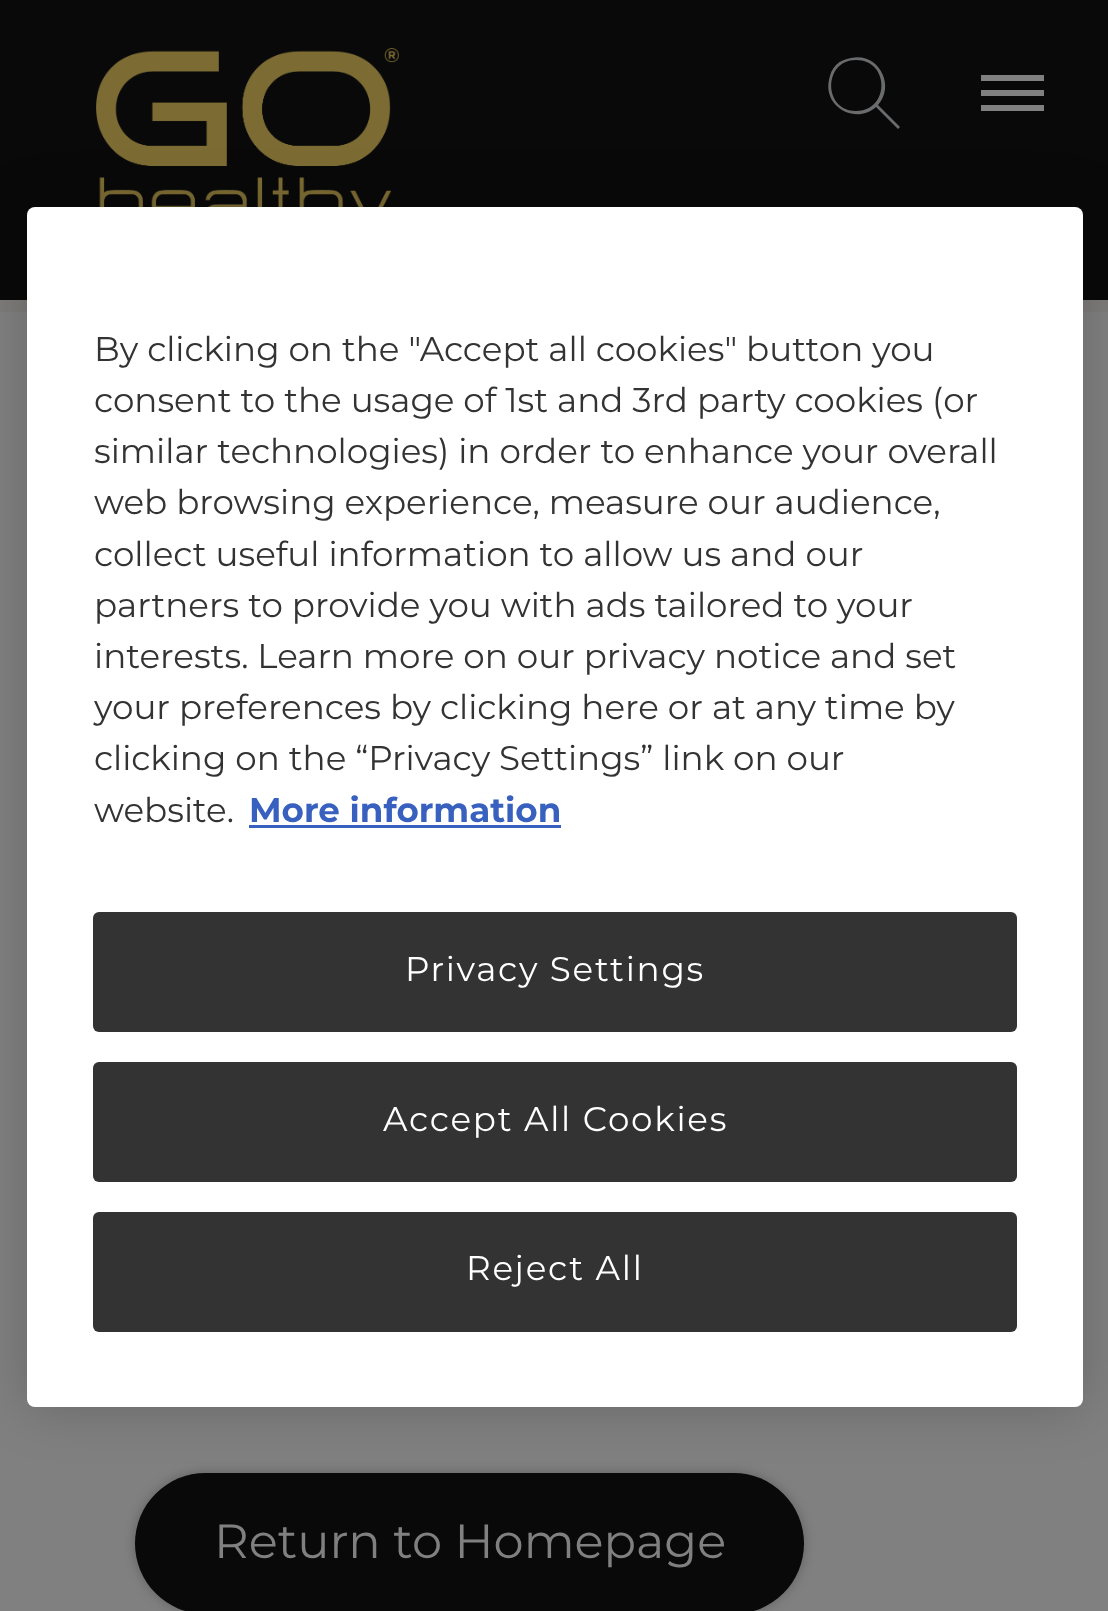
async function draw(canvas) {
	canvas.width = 1108;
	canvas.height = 1611;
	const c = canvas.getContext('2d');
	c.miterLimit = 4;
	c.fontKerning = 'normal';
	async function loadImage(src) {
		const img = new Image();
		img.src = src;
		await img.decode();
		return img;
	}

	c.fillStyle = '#808080';
	c.fillRect(0, 0, 1108, 1611);
	c.fillStyle = '#090909';
	c.fillRect(0, 0, 1108, 300);
	c.fillStyle = '#7d7c7a';
	c.fillRect(0, 300, 1108, 12);
	c.drawImage(await loadImage('img1.png'), 96, 48, 303, 159);
	c.fillStyle = '#696b6d';
	c.beginPath();
	c.moveTo(876, 107);
	c.bezierCurveTo(856, 125, 823, 107, 829, 80);
	c.bezierCurveTo(830, 74, 832, 69, 836, 65);
	c.bezierCurveTo(840, 61, 845, 59, 851, 58);
	c.bezierCurveTo(878, 52, 896, 85, 878, 105);
	c.lineTo(900, 127);
	c.lineTo(898, 129);
	c.closePath();
	c.moveTo(856, 60);
	c.bezierCurveTo(890, 60, 890, 111, 856, 111);
	c.bezierCurveTo(823, 111, 823, 60, 856, 60);
	c.closePath();
	c.fill('evenodd');
	c.fillStyle = '#00000040';
	c.filter = 'blur(6px)';
	c.beginPath();
	c.roundRect(135, 1473, 669, 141, 70.5);
	c.fill();
	c.filter = 'none';
	c.fillStyle = '#090909';
	c.beginPath();
	c.roundRect(135, 1473, 669, 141, 70.5);
	c.fill();
	c.fillStyle = '#00000033';
	c.filter = 'blur(27px)';
	c.beginPath();
	c.roundRect(27, 207, 1056, 1200, 8);
	c.fill();
	c.filter = 'none';
	c.fillStyle = '#fff';
	c.beginPath();
	c.roundRect(27, 207, 1056, 1200, 8);
	c.fill();
	c.font = '100 34.15px Montserrat';
	c.fillStyle = '#333';
	for (const [text, x, y] of [
		['By clicking on the "Accept all cookies" button you', 94, 361],
		['consent to the usage of 1st and 3rd party cookies (or', 94, 412],
		['similar technologies) in order to enhance your overall', 94, 463],
		['web browsing experience, measure our audience,', 94, 514],
		['collect useful information to allow us and our', 94, 566],
		['partners to provide you with ads tailored to your', 94, 617],
		['interests. Learn more on our privacy notice and set', 94, 668],
		['your preferences by clicking here or at any time by', 94, 719],
		['clicking on the “Privacy Settings” link on our', 94, 770],
		['website.', 94, 822],
	]) {
		c.fillText(text, x, y);
	}
	c.font = '100 34.15px "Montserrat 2"';
	c.fillStyle = '#3860be';
	c.fillText('More information', 249, 822);
	c.fillRect(249, 825, 312, 3);
	c.fillStyle = '#333';
	c.beginPath();
	c.roundRect(93, 912, 924, 120, 6);
	c.fill();
	c.letterSpacing = '1.75px';
	c.font = '100 34.15px Montserrat';
	c.fillStyle = '#fff';
	c.fillText('Privacy Settings', 405, 981);
	c.fillStyle = '#333';
	c.beginPath();
	c.roundRect(93, 1062, 924, 120, 6);
	c.fill();
	c.fillStyle = '#fff';
	c.fillText('Accept All Cookies', 383, 1131);
	c.fillStyle = '#333';
	c.beginPath();
	c.roundRect(93, 1212, 924, 120, 6);
	c.fill();
	c.fillStyle = '#fff';
	c.fillText('Reject All', 466, 1280);
	for (const [x, y, w, h, color] of [
		[981, 90, 63, 6, '#808080'],
		[981, 75, 63, 6, '#808080'],
		[981, 105, 63, 6, '#808080'],
	]) {
		c.fillStyle = color;
		c.fillRect(x, y, w, h);
	}
	c.letterSpacing = '0px';
	c.font = '100 48px Montserrat';
	c.fillText('Return to Homepage', 214, 1558);
}

draw(document.querySelector('canvas'));
